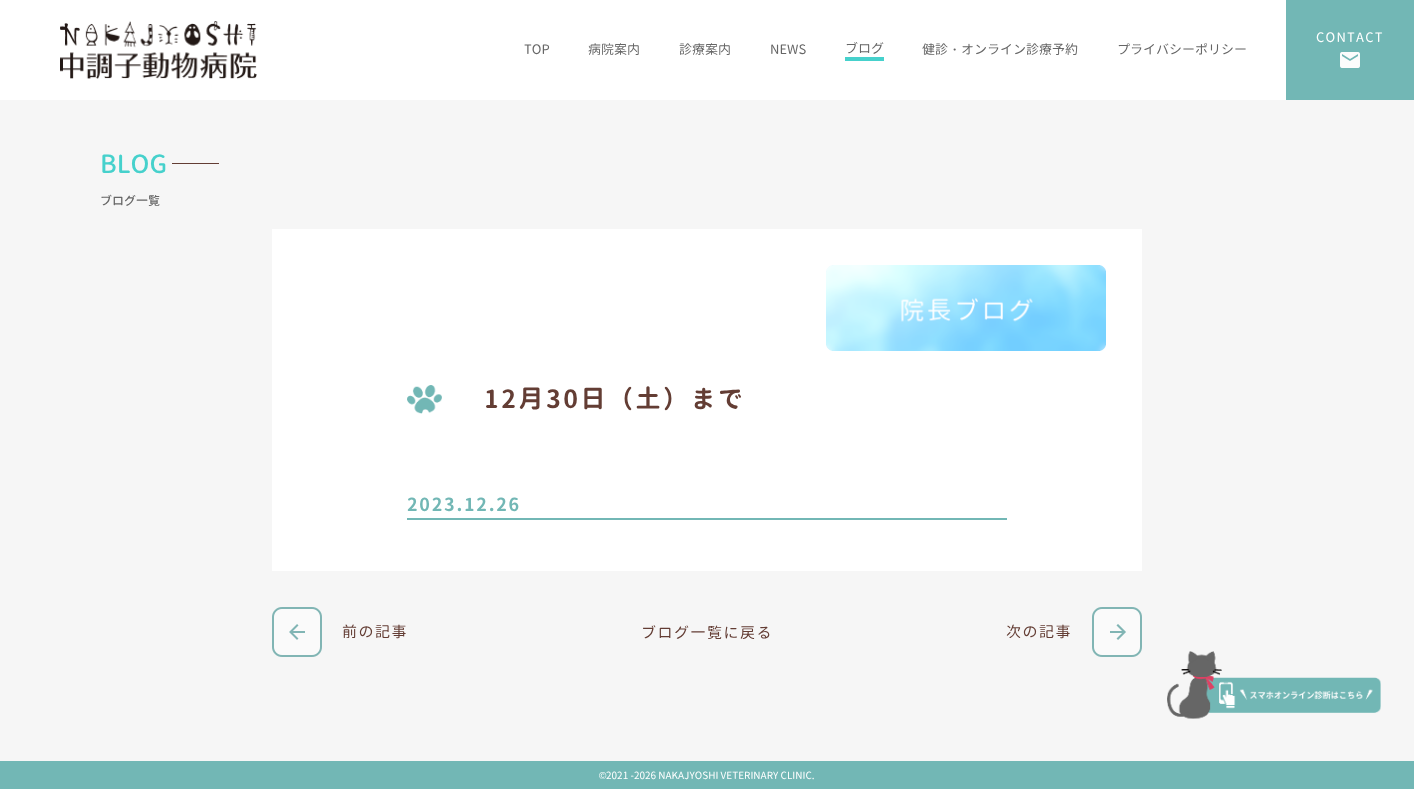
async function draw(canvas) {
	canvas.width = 1414;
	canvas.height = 789;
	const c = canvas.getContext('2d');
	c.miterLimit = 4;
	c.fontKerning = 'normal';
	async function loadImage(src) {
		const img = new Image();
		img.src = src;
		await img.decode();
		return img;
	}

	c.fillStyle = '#fff';
	c.fillRect(0, 0, 1414, 789);
	c.drawImage(await loadImage('img1.png'), 60, 21, 197, 58);
	c.fillStyle = '#72b7b5';
	c.fillRect(1286, 0, 128, 100);
	c.letterSpacing = '1.25px';
	c.font = '13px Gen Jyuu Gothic';
	c.fillStyle = '#fff';
	c.fillText('CONTACT', 1316, 42);
	c.drawImage(await loadImage('img2.png'), 1340, 52, 20, 16);
	c.letterSpacing = '0px';
	c.fillStyle = '#666';
	for (const [text, x, y] of [
		['TOP', 524, 54],
		['病院案内', 588, 54],
		['診療案内', 679, 54],
		['NEWS', 770, 54],
	]) {
		c.fillText(text, x, y);
	}
	c.fillStyle = '#46d1cc';
	c.fillRect(845, 57, 39, 4);
	c.fillStyle = '#666';
	c.fillText('ブログ', 845, 53);
	c.fillText('健診', 922, 54);
	c.font = '500 13px WenQuanYi Zen Hei';
	c.fillText('・', 948, 54);
	c.font = '13px Gen Jyuu Gothic';
	c.fillText('オンライン診療予約', 961, 54);
	c.fillText('プライバシーポリシー', 1117, 54);
	c.fillStyle = '#f6f6f6';
	c.fillRect(0, 100, 1414, 661);
	c.font = '500 25px Gen Jyuu Gothic';
	c.fillStyle = '#46d1cc';
	c.fillText('BLOG', 100, 173);
	c.fillStyle = '#633d34';
	c.fillRect(172, 163, 47, 1);
	c.font = '500 12px Gen Jyuu Gothic';
	c.fillStyle = '#666';
	c.fillText('ブログ一覧', 100, 205);
	c.fillStyle = '#fff';
	c.fillRect(272, 229, 870, 342);
	c.drawImage(await loadImage('img3.png'), 826, 265, 280, 86);
	c.drawImage(await loadImage('img4.png'), 407, 385, 35, 29);
	c.letterSpacing = '2.5px';
	c.font = 'bold 25px Gen Jyuu Gothic';
	c.fillStyle = '#633d34';
	c.fillText('12月30日（土）まで', 484, 408);
	c.fillStyle = '#72b7b5';
	c.fillRect(407, 518, 600, 2);
	c.letterSpacing = '1.75px';
	c.font = 'bold 18px Gen Jyuu Gothic';
	c.fillText('2023.12.26', 407, 511);
	c.drawImage(await loadImage('img5.png'), 272, 607, 50, 50);
	c.letterSpacing = '1.5px';
	c.font = '15px Gen Jyuu Gothic';
	c.fillStyle = '#633d34';
	for (const [text, x, y] of [
		['前の記事', 342, 637],
		['ブログ一覧に戻る', 641, 638],
		['次の記事', 1006, 637],
	]) {
		c.fillText(text, x, y);
	}
	c.drawImage(await loadImage('img6.png'), 1092, 607, 50, 50);
	c.drawImage(await loadImage('img7.png'), 1167, 651, 214, 68);
	c.fillStyle = '#72b7b5';
	c.fillRect(0, 761, 1414, 28);
	c.letterSpacing = '0px';
	c.font = '10px Liberation Sans';
	c.fillStyle = '#fff';
	c.fillText('©', 599, 779);
	c.font = '10px Gen Jyuu Gothic';
	c.fillText('2021 -2026 NAKAJYOSHI VETERINARY CLINIC.', 606, 779);
}

draw(document.querySelector('canvas'));
